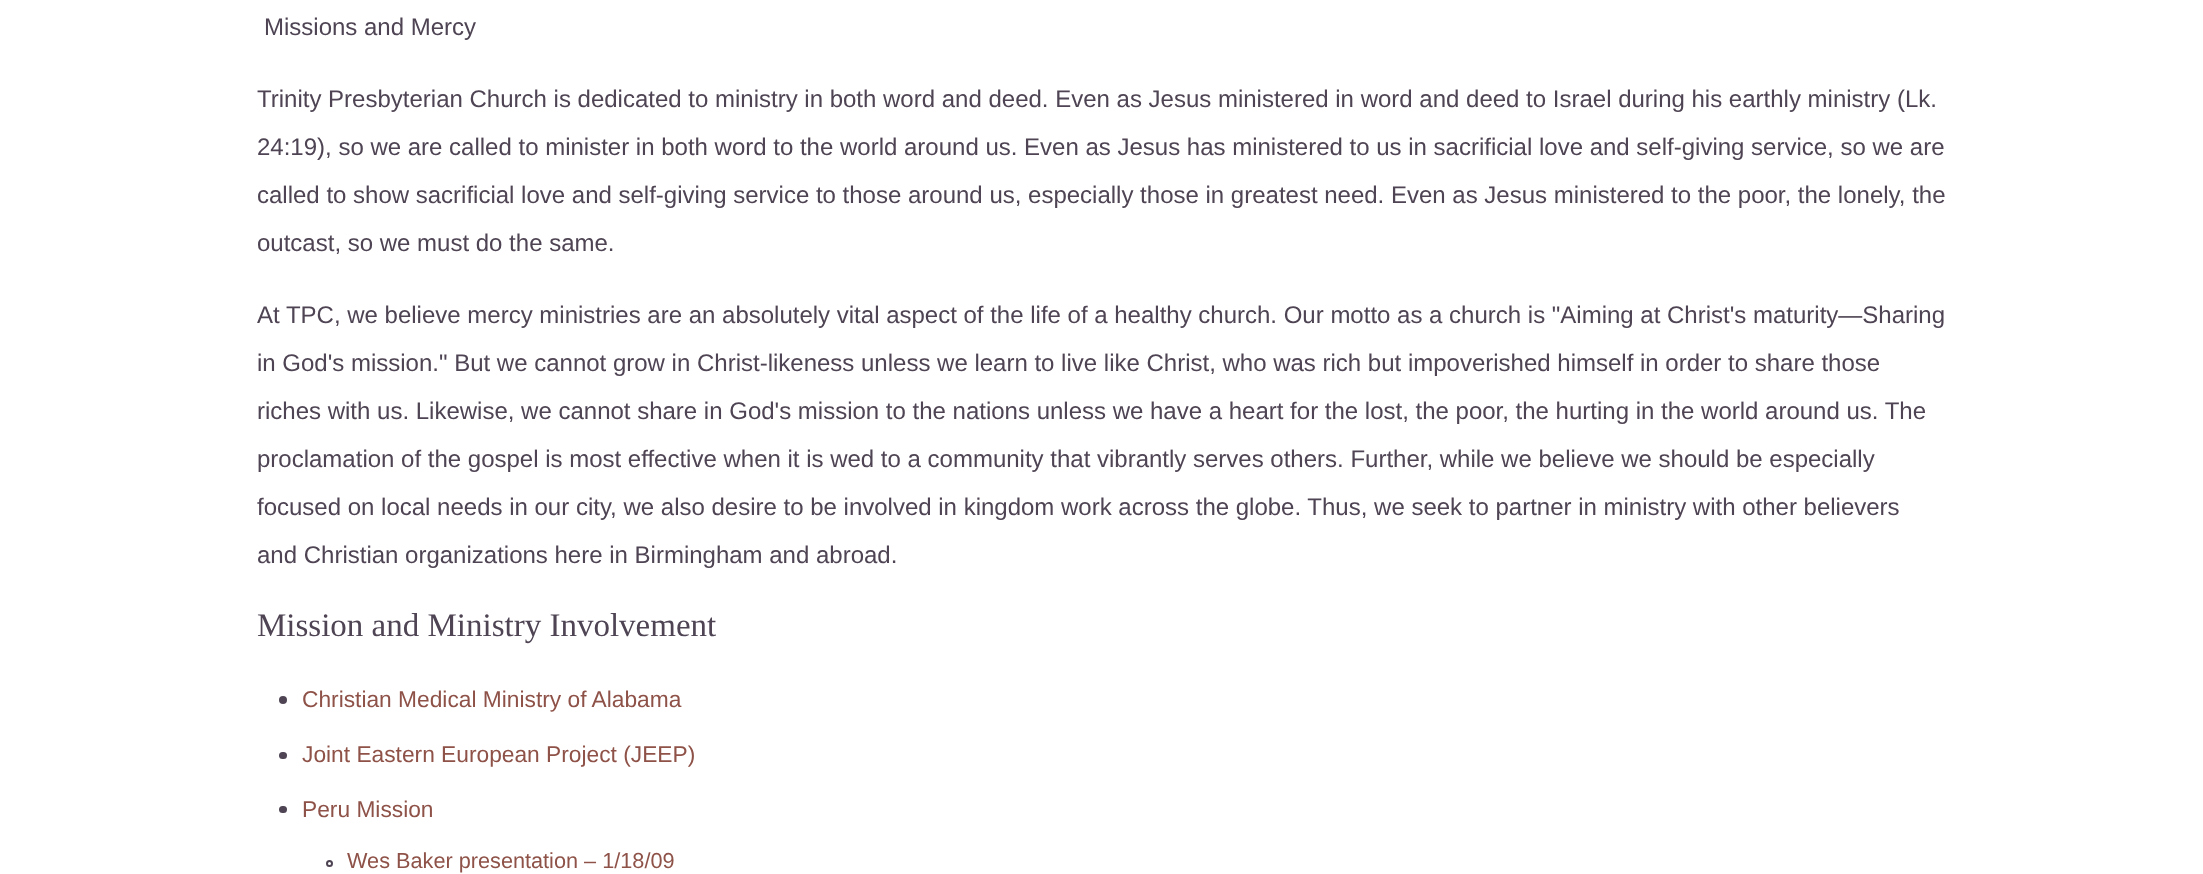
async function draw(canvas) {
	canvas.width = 2203;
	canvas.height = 874;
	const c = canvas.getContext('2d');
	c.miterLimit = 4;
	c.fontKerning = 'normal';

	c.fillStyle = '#fff';
	c.fillRect(0, 0, 2203, 874);
	c.font = '24px Liberation Sans';
	c.fillStyle = '#4e4453';
	for (const [text, x, y] of [
		['Missions and Mercy', 264, 35],
		['Trinity Presbyterian Church is dedicated to ministry in both word and deed. Even as Jesus ministered in word and deed to Israel during his earthly ministry (Lk.', 257, 107],
		['24:19), so we are called to minister in both word to the world around us. Even as Jesus has ministered to us in sacrificial love and self-giving service, so we are', 257, 155],
		['called to show sacrificial love and self-giving service to those around us, especially those in greatest need. Even as Jesus ministered to the poor, the lonely, the', 257, 203],
		['outcast, so we must do the same.', 257, 251],
		['At TPC, we believe mercy ministries are an absolutely vital aspect of the life of a healthy church. Our motto as a church is "Aiming at Christ\'s maturity—Sharing', 257, 323],
		['in God\'s mission." But we cannot grow in Christ-likeness unless we learn to live like Christ, who was rich but impoverished himself in order to share those', 257, 371],
		['riches with us. Likewise, we cannot share in God\'s mission to the nations unless we have a heart for the lost, the poor, the hurting in the world around us. The', 257, 419],
		['proclamation of the gospel is most effective when it is wed to a community that vibrantly serves others. Further, while we believe we should be especially', 257, 467],
		['focused on local needs in our city, we also desire to be involved in kingdom work across the globe. Thus, we seek to partner in ministry with other believers', 257, 515],
		['and Christian organizations here in Birmingham and abroad.', 257, 563],
	]) {
		c.fillText(text, x, y);
	}
	c.font = '33px Liberation Serif';
	c.fillText('Mission and Ministry Involvement', 257, 636);
	c.beginPath();
	c.arc(283, 700, 4, 0, 2 * Math.PI);
	c.fill();
	c.font = '22.75px Liberation Sans';
	c.fillStyle = '#8e5248';
	c.fillText('Christian Medical Ministry of Alabama', 302, 707);
	c.fillStyle = '#4e4453';
	c.beginPath();
	c.roundRect(279, 752, 8, 7, 3.5);
	c.fill();
	c.fillStyle = '#8e5248';
	c.fillText('Joint Eastern European Project (JEEP)', 302, 762);
	c.fillStyle = '#4e4453';
	c.beginPath();
	c.roundRect(279, 806, 8, 7, 3.5);
	c.fill();
	c.fillStyle = '#8e5248';
	c.fillText('Peru Mission', 302, 817);
	c.beginPath();
	c.arc(329.5, 863.5, 2.5, 0, 2 * Math.PI);
	c.strokeStyle = '#4e4453';
	c.lineWidth = 2;
	c.stroke();
	c.font = '21.7px Liberation Sans';
	c.fillText('Wes Baker presentation – 1/18/09', 347, 868);
}

draw(document.querySelector('canvas'));
